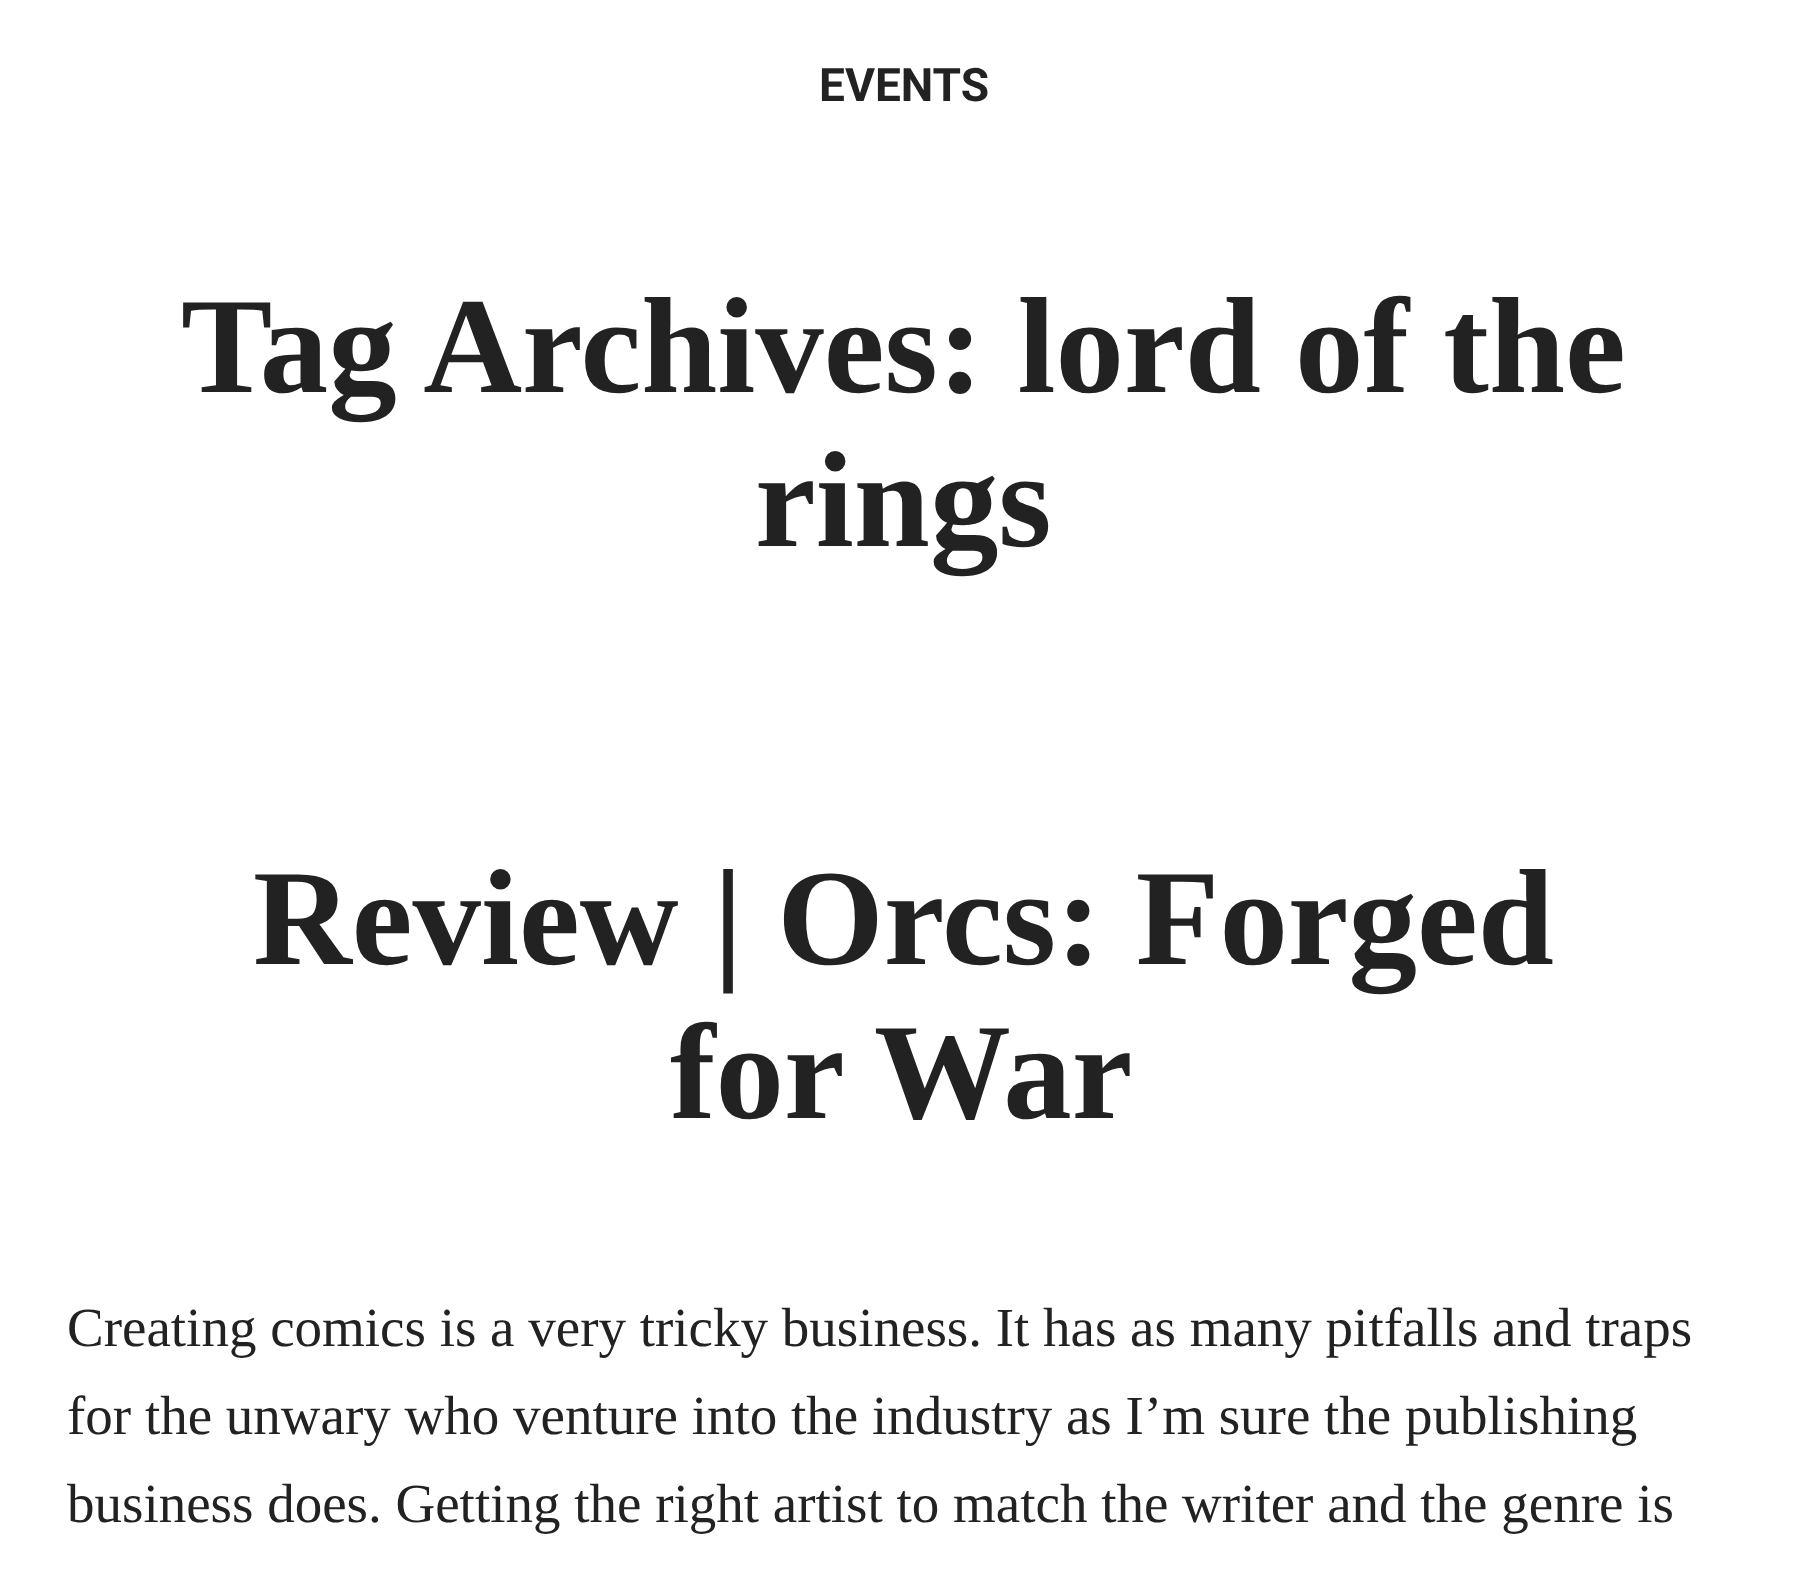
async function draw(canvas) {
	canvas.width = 1805;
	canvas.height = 1581;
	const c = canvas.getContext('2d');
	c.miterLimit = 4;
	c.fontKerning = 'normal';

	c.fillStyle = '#fff';
	c.fillRect(0, 0, 1805, 1581);
	c.font = 'bold 46px Roboto';
	c.fillStyle = '#222';
	c.fillText('EVENTS', 819, 101);
	c.font = 'bold 136.9px Liberation Serif';
	for (const [text, x, y] of [
		['Tag Archives: lord of the', 181, 392],
		['rings', 755, 546],
		['Review | Orcs: Forged', 253, 964],
		['for War', 670, 1118],
	]) {
		c.fillText(text, x, y);
	}
	c.font = '55px Liberation Serif';
	for (const [text, x, y] of [
		['Creating comics is a very tricky business. It has as many pitfalls and traps', 67, 1346],
		['for the unwary who venture into the industry as I’m sure the publishing', 67, 1434],
		['business does. Getting the right artist to match the writer and the genre is', 67, 1522],
	]) {
		c.fillText(text, x, y);
	}
}

draw(document.querySelector('canvas'));
